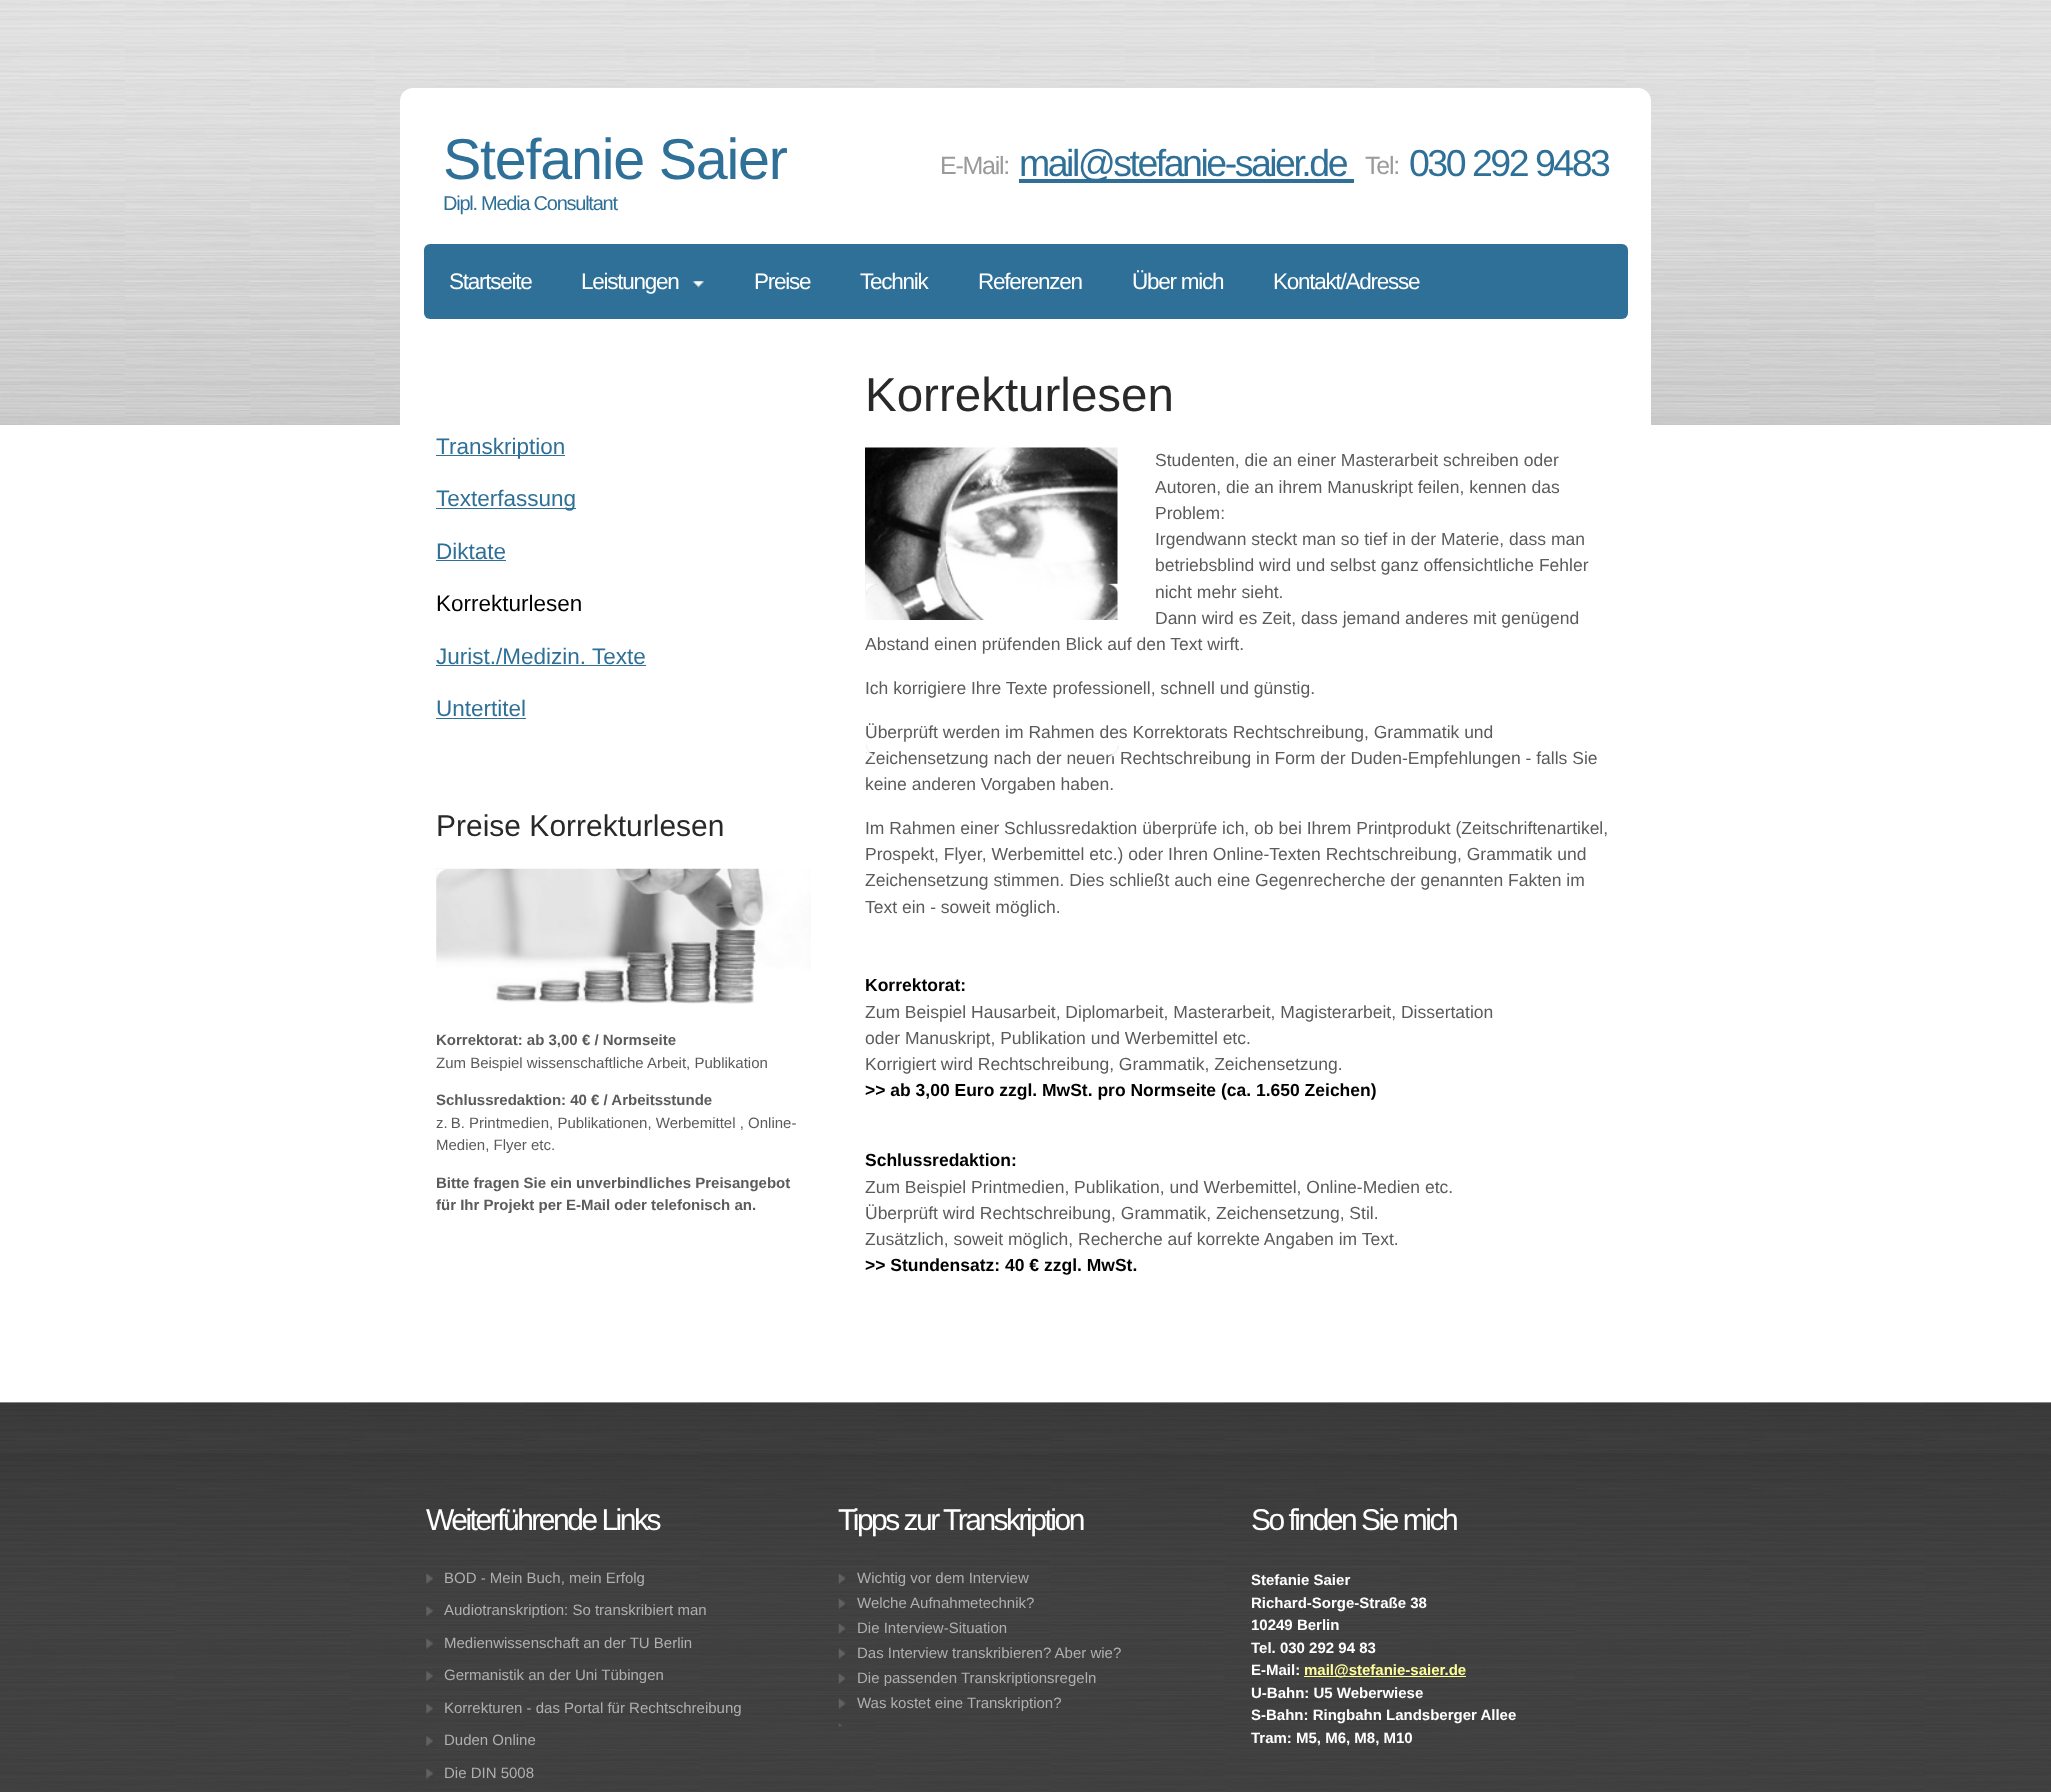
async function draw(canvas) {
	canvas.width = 2051;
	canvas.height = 1792;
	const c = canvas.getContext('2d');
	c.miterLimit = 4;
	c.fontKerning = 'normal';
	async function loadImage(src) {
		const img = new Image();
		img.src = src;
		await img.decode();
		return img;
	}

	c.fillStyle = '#fff';
	c.fillRect(0, 0, 2051, 1792);
	c.drawImage(await loadImage('img1.png'), 0, 0, 2051, 425);
	c.beginPath();
	c.roundRect(400, 88, 1251, 1315, 13);
	c.fill();
	c.letterSpacing = '-1.25px';
	c.font = '57.5px Liberation Sans';
	c.fillStyle = '#2f7098';
	c.fillText('Stefanie Saier', 443, 179);
	c.font = '20px Liberation Sans';
	c.fillText('Dipl. Media Consultant', 443, 210);
	c.font = '25px Liberation Sans';
	c.fillStyle = '#9a9a9a';
	c.fillText('E-Mail:', 940, 174);
	c.fillStyle = '#2f7098';
	c.fillRect(1019, 179, 335, 4);
	c.letterSpacing = '-2.5px';
	c.font = '37.5px Liberation Sans';
	c.fillText('mail@stefanie-saier.de', 1019, 176);
	c.letterSpacing = '-1.25px';
	c.font = '25px Liberation Sans';
	c.fillStyle = '#9a9a9a';
	c.fillText('Tel:', 1365, 174);
	c.letterSpacing = '-2.5px';
	c.font = '37.5px Liberation Sans';
	c.fillStyle = '#2f7098';
	c.fillText('030 292 9483', 1409, 176);
	c.beginPath();
	c.roundRect(424, 244, 1204, 75, 6);
	c.fill();
	c.letterSpacing = '-1.25px';
	c.font = '22.5px Liberation Sans';
	c.fillStyle = '#fff';
	c.fillText('Startseite', 449, 289);
	c.drawImage(await loadImage('img2.png'), 692, 281, 12, 7);
	for (const [text, x, y] of [
		['Leistungen', 581, 289],
		['Preise', 754, 289],
		['Technik', 860, 289],
		['Referenzen', 978, 289],
		['Über mich', 1132, 289],
		['Kontakt/Adresse', 1273, 289],
	]) {
		c.fillText(text, x, y);
	}
	c.fillStyle = '#2f7098';
	c.fillRect(436, 455, 129, 1);
	c.letterSpacing = '0px';
	c.fillText('Transkription', 436, 454);
	c.fillRect(436, 508, 140, 1);
	c.fillText('Texterfassung', 436, 506);
	c.fillText('Diktate', 436, 559);
	c.fillRect(436, 560, 70, 1);
	c.fillStyle = '#000';
	c.fillText('Korrekturlesen', 436, 611);
	c.fillStyle = '#2f7098';
	c.fillText('Jurist./Medizin. Texte', 436, 664);
	c.fillRect(436, 665, 210, 1);
	c.fillText('Untertitel', 436, 716);
	c.fillRect(436, 718, 90, 1);
	c.font = '30px Liberation Sans';
	c.fillStyle = '#292929';
	c.fillText('Preise Korrekturlesen', 436, 836);
	c.drawImage(await loadImage('img3.png'), 436, 868, 375, 136);
	c.drawImage(await loadImage('img4.png'), 436, 869, 11, 10);
	c.font = 'bold 15px Liberation Sans';
	c.fillStyle = '#5b5b5b';
	c.fillText('Korrektorat: ab 3,00 € / Normseite', 436, 1045);
	c.font = '15px Liberation Sans';
	c.fillText('Zum Beispiel wissenschaftliche Arbeit, Publikation', 436, 1068);
	c.font = 'bold 15px Liberation Sans';
	c.fillText('Schlussredaktion: 40 € / Arbeitsstunde', 436, 1105);
	c.font = '15px Liberation Sans';
	c.fillText('z. B. Printmedien, Publikationen, Werbemittel , Online-', 436, 1128);
	c.fillText('Medien, Flyer etc.', 436, 1150);
	c.font = 'bold 15px Liberation Sans';
	c.fillText('Bitte fragen Sie ein unverbindliches Preisangebot', 436, 1188);
	c.fillText('für Ihr Projekt per E-Mail oder telefonisch an.', 436, 1210);
	c.font = '47.5px Liberation Sans';
	c.fillStyle = '#292929';
	c.fillText('Korrekturlesen', 865, 411);
	c.drawImage(await loadImage('img5.png'), 865, 447, 253, 173);
	c.font = '17.5px Liberation Sans';
	c.fillStyle = '#5b5b5b';
	for (const [text, x, y] of [
		['Abstand einen prüfenden Blick auf den Text wirft.', 865, 650],
		['Ich korrigiere Ihre Texte professionell, schnell und günstig.', 865, 694],
		['Überprüft werden im Rahmen des Korrektorats Rechtschreibung, Grammatik und', 865, 738],
		['Zeichensetzung nach der neuen Rechtschreibung in Form der Duden-Empfehlungen - falls Sie', 865, 764],
	]) {
		c.fillText(text, x, y);
	}
	c.drawImage(await loadImage('img6.png'), 866, 583, 253, 174);
	for (const [text, x, y] of [
		['Studenten, die an einer Masterarbeit schreiben oder', 1155, 466],
		['Autoren, die an ihrem Manuskript feilen, kennen das', 1155, 493],
		['Problem:', 1155, 519],
		['Irgendwann steckt man so tief in der Materie, dass man', 1155, 545],
		['betriebsblind wird und selbst ganz offensichtliche Fehler', 1155, 571],
		['nicht mehr sieht.', 1155, 598],
		['Dann wird es Zeit, dass jemand anderes mit genügend', 1155, 624],
		['keine anderen Vorgaben haben.', 865, 790],
		['Im Rahmen einer Schlussredaktion überprüfe ich, ob bei Ihrem Printprodukt (Zeitschriftenartikel,', 865, 834],
		['Prospekt, Flyer, Werbemittel etc.) oder Ihren Online-Texten Rechtschreibung, Grammatik und', 865, 860],
		['Zeichensetzung stimmen. Dies schließt auch eine Gegenrecherche der genannten Fakten im', 865, 886],
		['Text ein - soweit möglich.', 865, 913],
	]) {
		c.fillText(text, x, y);
	}
	c.font = 'bold 17.5px Liberation Sans';
	c.fillStyle = '#000';
	c.fillText('Korrektorat:', 865, 991);
	c.font = '17.5px Liberation Sans';
	c.fillStyle = '#5b5b5b';
	for (const [text, x, y] of [
		['Zum Beispiel Hausarbeit, Diplomarbeit, Masterarbeit, Magisterarbeit, Dissertation', 865, 1018],
		['oder Manuskript, Publikation und Werbemittel etc.', 865, 1044],
		['Korrigiert wird Rechtschreibung, Grammatik, Zeichensetzung.', 865, 1070],
	]) {
		c.fillText(text, x, y);
	}
	c.font = 'bold 17.5px Liberation Sans';
	c.fillStyle = '#000';
	c.fillText('>> ab 3,00 Euro zzgl. MwSt. pro Normseite (ca. 1.650 Zeichen)', 865, 1096);
	c.fillText('Schlussredaktion:', 865, 1166);
	c.font = '17.5px Liberation Sans';
	c.fillStyle = '#5b5b5b';
	for (const [text, x, y] of [
		['Zum Beispiel Printmedien, Publikation, und Werbemittel, Online-Medien etc.', 865, 1193],
		['Überprüft wird Rechtschreibung, Grammatik, Zeichensetzung, Stil.', 865, 1219],
		['Zusätzlich, soweit möglich, Recherche auf korrekte Angaben im Text.', 865, 1245],
	]) {
		c.fillText(text, x, y);
	}
	c.font = 'bold 17.5px Liberation Sans';
	c.fillStyle = '#000';
	c.fillText('>> Stundensatz: 40 € zzgl. MwSt.', 865, 1271);
	c.drawImage(await loadImage('img7.png'), 0, 1402, 2051, 390);
	c.drawImage(await loadImage('img8.png'), 0, 1402, 2051, 51);
	c.drawImage(await loadImage('img9.png'), 0, 1686, 2051, 90);
	c.drawImage(await loadImage('img10.png'), 0, 1453, 2051, 233);
	c.letterSpacing = '-2.5px';
	c.font = '30px Liberation Sans';
	c.fillStyle = '#fff';
	c.fillText('Weiterführende Links', 426, 1530);
	c.drawImage(await loadImage('img11.png'), 426, 1573, 7, 11);
	c.letterSpacing = '0px';
	c.font = '15px Liberation Sans';
	c.fillStyle = '#afafaf';
	c.fillText('BOD - Mein Buch, mein Erfolg', 444, 1583);
	c.drawImage(await loadImage('img12.png'), 426, 1606, 7, 10);
	c.fillText('Audiotranskription: So transkribiert man', 444, 1615);
	c.drawImage(await loadImage('img13.png'), 426, 1638, 7, 11);
	c.fillText('Medienwissenschaft an der TU Berlin', 444, 1648);
	c.drawImage(await loadImage('img14.png'), 426, 1671, 8, 10);
	c.fillText('Germanistik an der Uni Tübingen', 444, 1680);
	c.drawImage(await loadImage('img15.png'), 426, 1703, 7, 11);
	c.fillText('Korrekturen - das Portal für Rechtschreibung', 444, 1713);
	c.drawImage(await loadImage('img16.png'), 426, 1736, 7, 10);
	c.fillText('Duden Online', 444, 1745);
	c.drawImage(await loadImage('img17.png'), 426, 1768, 8, 11);
	c.fillText('Die DIN 5008', 444, 1778);
	c.letterSpacing = '-2.5px';
	c.font = '30px Liberation Sans';
	c.fillStyle = '#fff';
	c.fillText('Tipps zur Transkription', 838, 1530);
	c.drawImage(await loadImage('img18.png'), 838, 1573, 8, 11);
	c.letterSpacing = '0px';
	c.font = '15px Liberation Sans';
	c.fillStyle = '#afafaf';
	c.fillText('Wichtig vor dem Interview', 857, 1583);
	c.drawImage(await loadImage('img19.png'), 838, 1598, 8, 11);
	c.fillText('Welche Aufnahmetechnik?', 857, 1608);
	c.drawImage(await loadImage('img20.png'), 838, 1623, 8, 11);
	c.fillText('Die Interview-Situation', 857, 1633);
	c.drawImage(await loadImage('img21.png'), 838, 1648, 8, 11);
	c.fillText('Das Interview transkribieren? Aber wie?', 857, 1658);
	c.drawImage(await loadImage('img22.png'), 838, 1673, 7, 11);
	c.fillText('Die passenden Transkriptionsregeln', 857, 1683);
	c.drawImage(await loadImage('img23.png'), 838, 1698, 8, 11);
	c.fillText('Was kostet eine Transkription?', 857, 1708);
	c.drawImage(await loadImage('img24.png'), 838, 1723, 5, 4);
	c.letterSpacing = '-2.5px';
	c.font = '30px Liberation Sans';
	c.fillStyle = '#fff';
	c.fillText('So finden Sie mich', 1251, 1530);
	c.letterSpacing = '0px';
	c.font = 'bold 15px Liberation Sans';
	for (const [text, x, y] of [
		['Stefanie Saier', 1251, 1585],
		['Richard-Sorge-Straße 38', 1251, 1608],
		['10249 Berlin', 1251, 1630],
		['Tel. 030 292 94 83', 1251, 1653],
		['E-Mail:', 1251, 1675],
	]) {
		c.fillText(text, x, y);
	}
	c.fillStyle = '#ff9';
	c.fillRect(1304, 1676, 162, 1);
	c.fillText('mail@stefanie-saier.de', 1304, 1675);
	c.fillStyle = '#fff';
	for (const [text, x, y] of [
		['U-Bahn: U5 Weberwiese', 1251, 1698],
		['S-Bahn: Ringbahn Landsberger Allee', 1251, 1720],
		['Tram: M5, M6, M8, M10', 1251, 1743],
	]) {
		c.fillText(text, x, y);
	}
}

draw(document.querySelector('canvas'));
